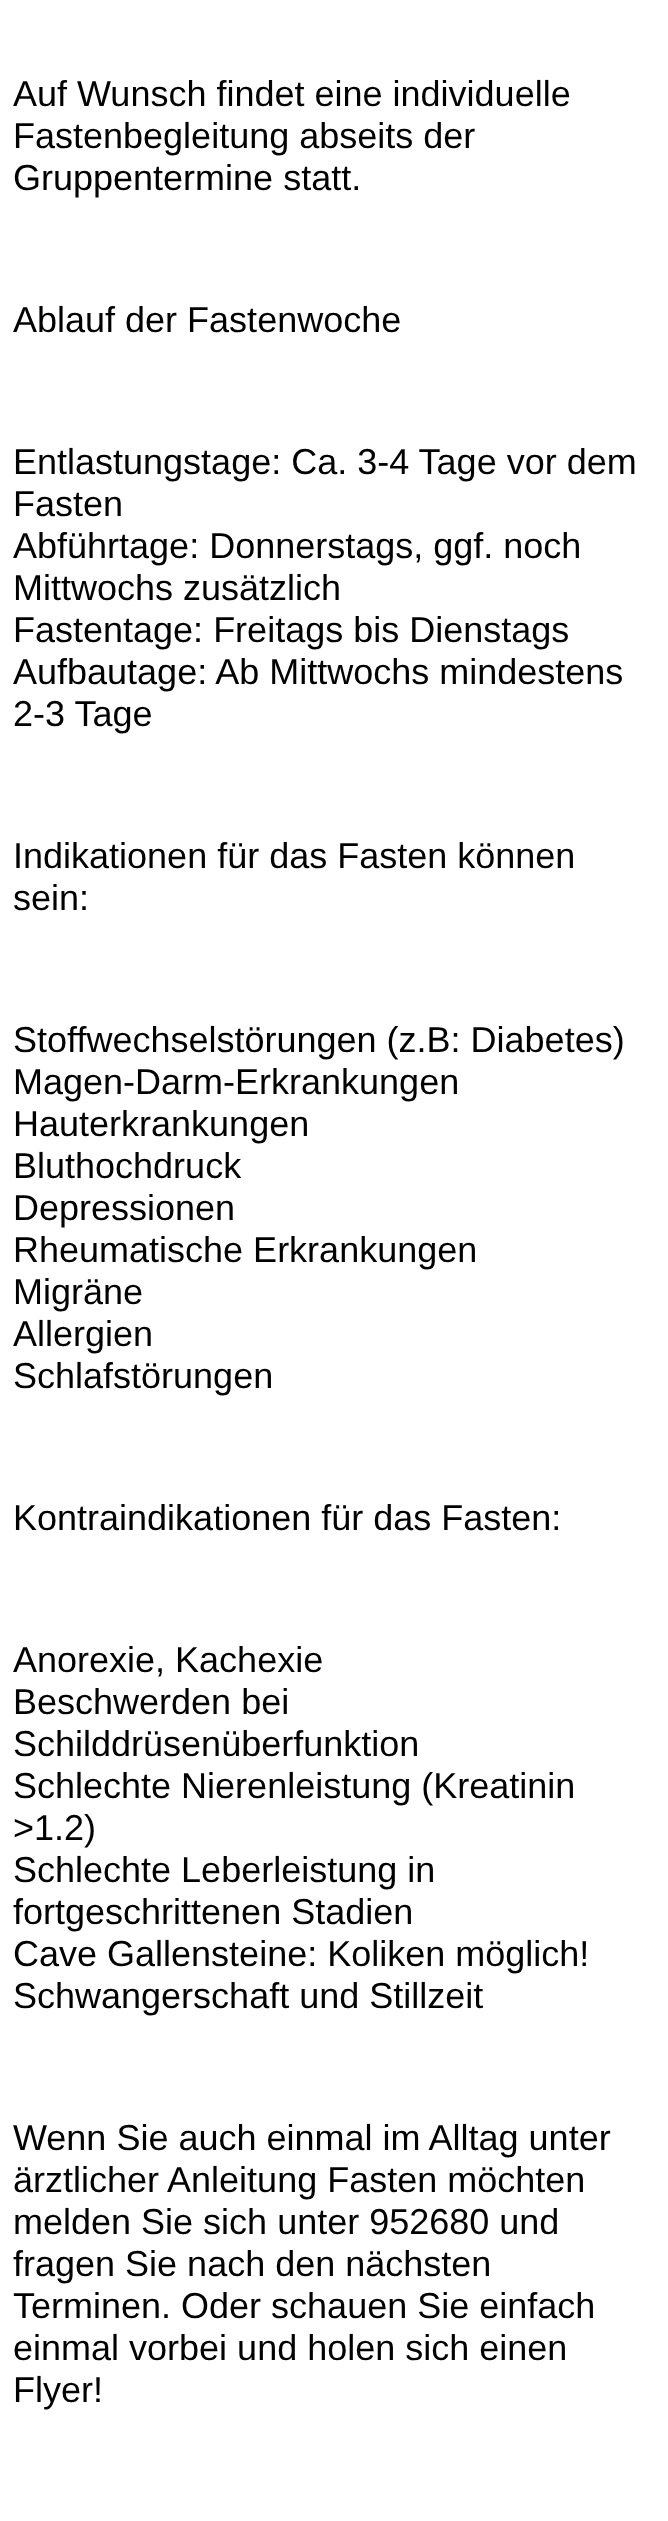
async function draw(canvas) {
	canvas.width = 668;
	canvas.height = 2521;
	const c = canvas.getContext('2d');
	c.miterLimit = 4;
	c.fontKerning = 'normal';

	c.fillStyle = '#fff';
	c.fillRect(0, 0, 668, 2521);
	c.font = '36px Liberation Sans';
	c.fillStyle = '#000';
	for (const [text, x, y] of [
		['Auf Wunsch findet eine individuelle', 13, 106],
		['Fastenbegleitung abseits der', 13, 148],
		['Gruppentermine statt.', 13, 190],
		['Ablauf der Fastenwoche', 13, 332],
		['Entlastungstage: Ca. 3-4 Tage vor dem', 13, 474],
		['Fasten', 13, 516],
		['Abführtage: Donnerstags, ggf. noch', 13, 558],
		['Mittwochs zusätzlich', 13, 600],
		['Fastentage: Freitags bis Dienstags', 13, 642],
		['Aufbautage: Ab Mittwochs mindestens', 13, 684],
		['2-3 Tage', 13, 726],
		['Indikationen für das Fasten können', 13, 868],
		['sein:', 13, 910],
		['Stoffwechselstörungen (z.B: Diabetes)', 13, 1052],
		['Magen-Darm-Erkrankungen', 13, 1094],
		['Hauterkrankungen', 13, 1136],
		['Bluthochdruck', 13, 1178],
		['Depressionen', 13, 1220],
		['Rheumatische Erkrankungen', 13, 1262],
		['Migräne', 13, 1304],
		['Allergien', 13, 1346],
		['Schlafstörungen', 13, 1388],
		['Kontraindikationen für das Fasten:', 13, 1530],
		['Anorexie, Kachexie', 13, 1672],
		['Beschwerden bei', 13, 1714],
		['Schilddrüsenüberfunktion', 13, 1756],
		['Schlechte Nierenleistung (Kreatinin', 13, 1798],
		['>1.2)', 13, 1840],
		['Schlechte Leberleistung in', 13, 1882],
		['fortgeschrittenen Stadien', 13, 1924],
		['Cave Gallensteine: Koliken möglich!', 13, 1966],
		['Schwangerschaft und Stillzeit', 13, 2008],
		['Wenn Sie auch einmal im Alltag unter', 13, 2150],
		['ärztlicher Anleitung Fasten möchten', 13, 2192],
		['melden Sie sich unter 952680 und', 13, 2234],
		['fragen Sie nach den nächsten', 13, 2276],
		['Terminen. Oder schauen Sie einfach', 13, 2318],
		['einmal vorbei und holen sich einen', 13, 2360],
		['Flyer!', 13, 2402],
	]) {
		c.fillText(text, x, y);
	}
}

draw(document.querySelector('canvas'));
